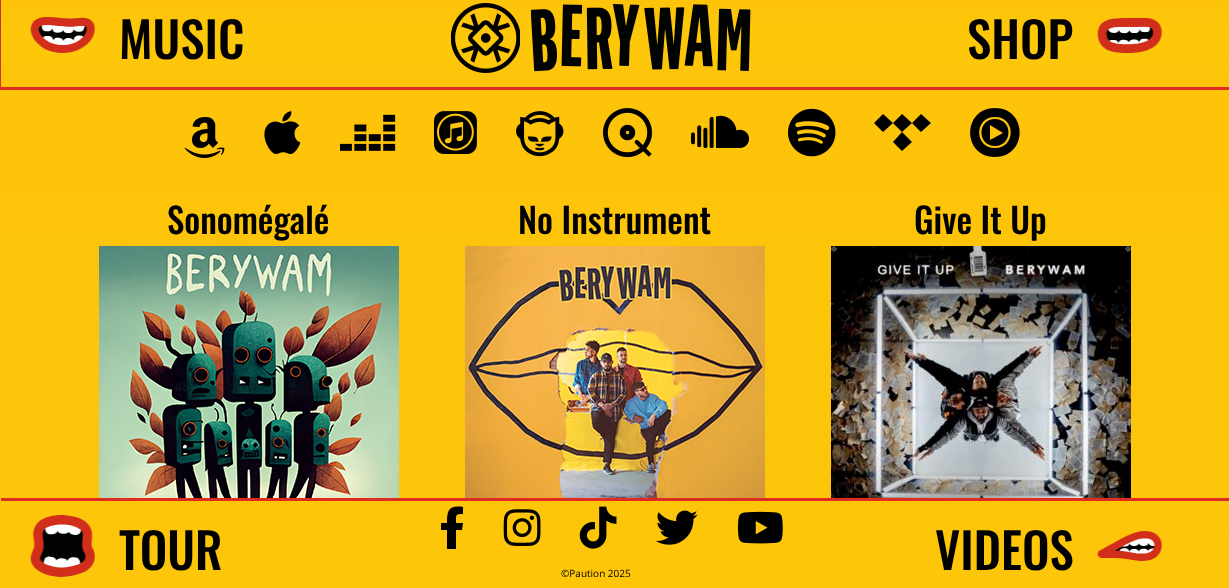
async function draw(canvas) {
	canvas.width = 1229;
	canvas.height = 588;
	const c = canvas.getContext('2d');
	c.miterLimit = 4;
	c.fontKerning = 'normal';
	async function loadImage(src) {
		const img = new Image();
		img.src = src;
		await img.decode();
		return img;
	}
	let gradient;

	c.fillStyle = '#fff';
	c.fillRect(0, 0, 1229, 588);
	gradient = c.createLinearGradient(615, 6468, 615, 0);
	gradient.addColorStop(0, '#d22e1c');
	gradient.addColorStop(0.25, '#fdaf05');
	gradient.addColorStop(0.5, '#fdc80a');
	gradient.addColorStop(0.75, '#fdaf05');
	gradient.addColorStop(1, '#d22e1c');
	c.fillStyle = gradient;
	c.fillRect(0, 0, 1, 90);
	gradient = c.createLinearGradient(615, 522, 615, -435);
	gradient.addColorStop(0, '#d22e1c');
	gradient.addColorStop(0.25, '#fdaf05');
	gradient.addColorStop(0.5, '#fdc80a');
	gradient.addColorStop(0.75, '#fdaf05');
	gradient.addColorStop(1, '#d22e1c');
	c.fillStyle = gradient;
	c.fillRect(1, 0, 1228, 87);
	c.fillStyle = '#e02b20';
	c.fillRect(1, 87, 1228, 3);
	c.drawImage(await loadImage('img1.png'), 30, 17, 65, 36);
	c.font = '500 49px Oswald';
	c.fillStyle = '#000';
	c.fillText('MUSIC', 119, 59);
	c.drawImage(await loadImage('img2.png'), 451, 3, 69, 70);
	c.drawImage(await loadImage('img3.png'), 531, 4, 220, 68);
	c.fillText('SHOP', 967, 59);
	c.drawImage(await loadImage('img4.png'), 1097, 18, 65, 35);
	gradient = c.createLinearGradient(615, 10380, 615, -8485);
	gradient.addColorStop(0, '#d22e1c');
	gradient.addColorStop(0.25, '#fdaf05');
	gradient.addColorStop(0.5, '#fdc80a');
	gradient.addColorStop(0.75, '#fdaf05');
	gradient.addColorStop(1, '#d22e1c');
	c.fillStyle = gradient;
	c.fillRect(0, 90, 1229, 498);
	c.drawImage(await loadImage('img5.png'), 184, 117, 41, 41);
	c.drawImage(await loadImage('img6.png'), 264, 111, 37, 43);
	c.drawImage(await loadImage('img7.png'), 340, 114, 56, 37);
	c.drawImage(await loadImage('img8.png'), 434, 111, 43, 43);
	c.drawImage(await loadImage('img9.png'), 516, 111, 48, 46);
	c.drawImage(await loadImage('img10.png'), 603, 108, 49, 50);
	c.drawImage(await loadImage('img11.png'), 691, 115, 58, 33);
	c.drawImage(await loadImage('img12.png'), 788, 108, 48, 49);
	c.fillStyle = '#000';
	c.beginPath();
	c.moveTo(912, 123);
	c.lineTo(902, 132);
	c.lineTo(893, 123);
	c.lineTo(902, 114);
	c.closePath();
	c.moveTo(912, 142);
	c.lineTo(902, 151);
	c.lineTo(893, 142);
	c.lineTo(902, 132);
	c.closePath();
	c.moveTo(893, 123);
	c.lineTo(883, 132);
	c.lineTo(874, 123);
	c.lineTo(883, 114);
	c.closePath();
	c.moveTo(931, 123);
	c.lineTo(921, 132);
	c.lineTo(912, 123);
	c.lineTo(921, 114);
	c.closePath();
	c.fill();
	c.beginPath();
	c.moveTo(995, 119);
	c.bezierCurveTo(977, 119, 977, 146, 995, 146);
	c.bezierCurveTo(1013, 146, 1013, 119, 995, 119);
	c.closePath();
	c.moveTo(990, 140);
	c.lineTo(990, 125);
	c.lineTo(1003, 133);
	c.closePath();
	c.moveTo(995, 108);
	c.bezierCurveTo(962, 108, 962, 157, 995, 157);
	c.bezierCurveTo(1028, 157, 1028, 108, 995, 108);
	c.closePath();
	c.moveTo(995, 148);
	c.bezierCurveTo(974, 148, 974, 117, 995, 117);
	c.bezierCurveTo(1016, 117, 1016, 148, 995, 148);
	c.closePath();
	c.fill();
	c.font = '500 35px Oswald';
	c.fillText('Sonomégalé', 167, 234);
	c.drawImage(await loadImage('img13.png'), 99, 246, 300, 252);
	c.fillText('No Instrument', 518, 234);
	c.drawImage(await loadImage('img14.png'), 465, 246, 300, 252);
	c.fillText('Give It Up', 914, 234);
	c.drawImage(await loadImage('img15.png'), 831, 246, 300, 252);
	c.fillStyle = '#e02b20';
	c.fillRect(1, 498, 1228, 3);
	c.drawImage(await loadImage('img16.png'), 30, 515, 65, 62);
	c.font = '500 49px Oswald';
	c.fillStyle = '#000';
	c.fillText('TOUR', 119, 570);
	c.fillText('VIDEOS', 935, 570);
	c.drawImage(await loadImage('img17.png'), 1097, 531, 65, 30);
	c.beginPath();
	c.moveTo(462, 530);
	c.lineTo(463, 523);
	c.lineTo(456, 523);
	c.bezierCurveTo(456, 515, 455, 514, 463, 514);
	c.lineTo(463, 507);
	c.bezierCurveTo(449, 505, 447, 510, 447, 523);
	c.lineTo(441, 523);
	c.lineTo(441, 530);
	c.lineTo(447, 530);
	c.lineTo(447, 549);
	c.lineTo(456, 549);
	c.lineTo(456, 530);
	c.closePath();
	c.fill();
	c.drawImage(await loadImage('img18.png'), 503, 509, 38, 37);
	c.drawImage(await loadImage('img19.png'), 579, 506, 38, 43);
	c.drawImage(await loadImage('img20.png'), 656, 510, 42, 35);
	c.drawImage(await loadImage('img21.png'), 737, 511, 46, 33);
	c.font = '10px Open Sans';
	c.fillText('©Paution 2025', 561, 577);
}

draw(document.querySelector('canvas'));
